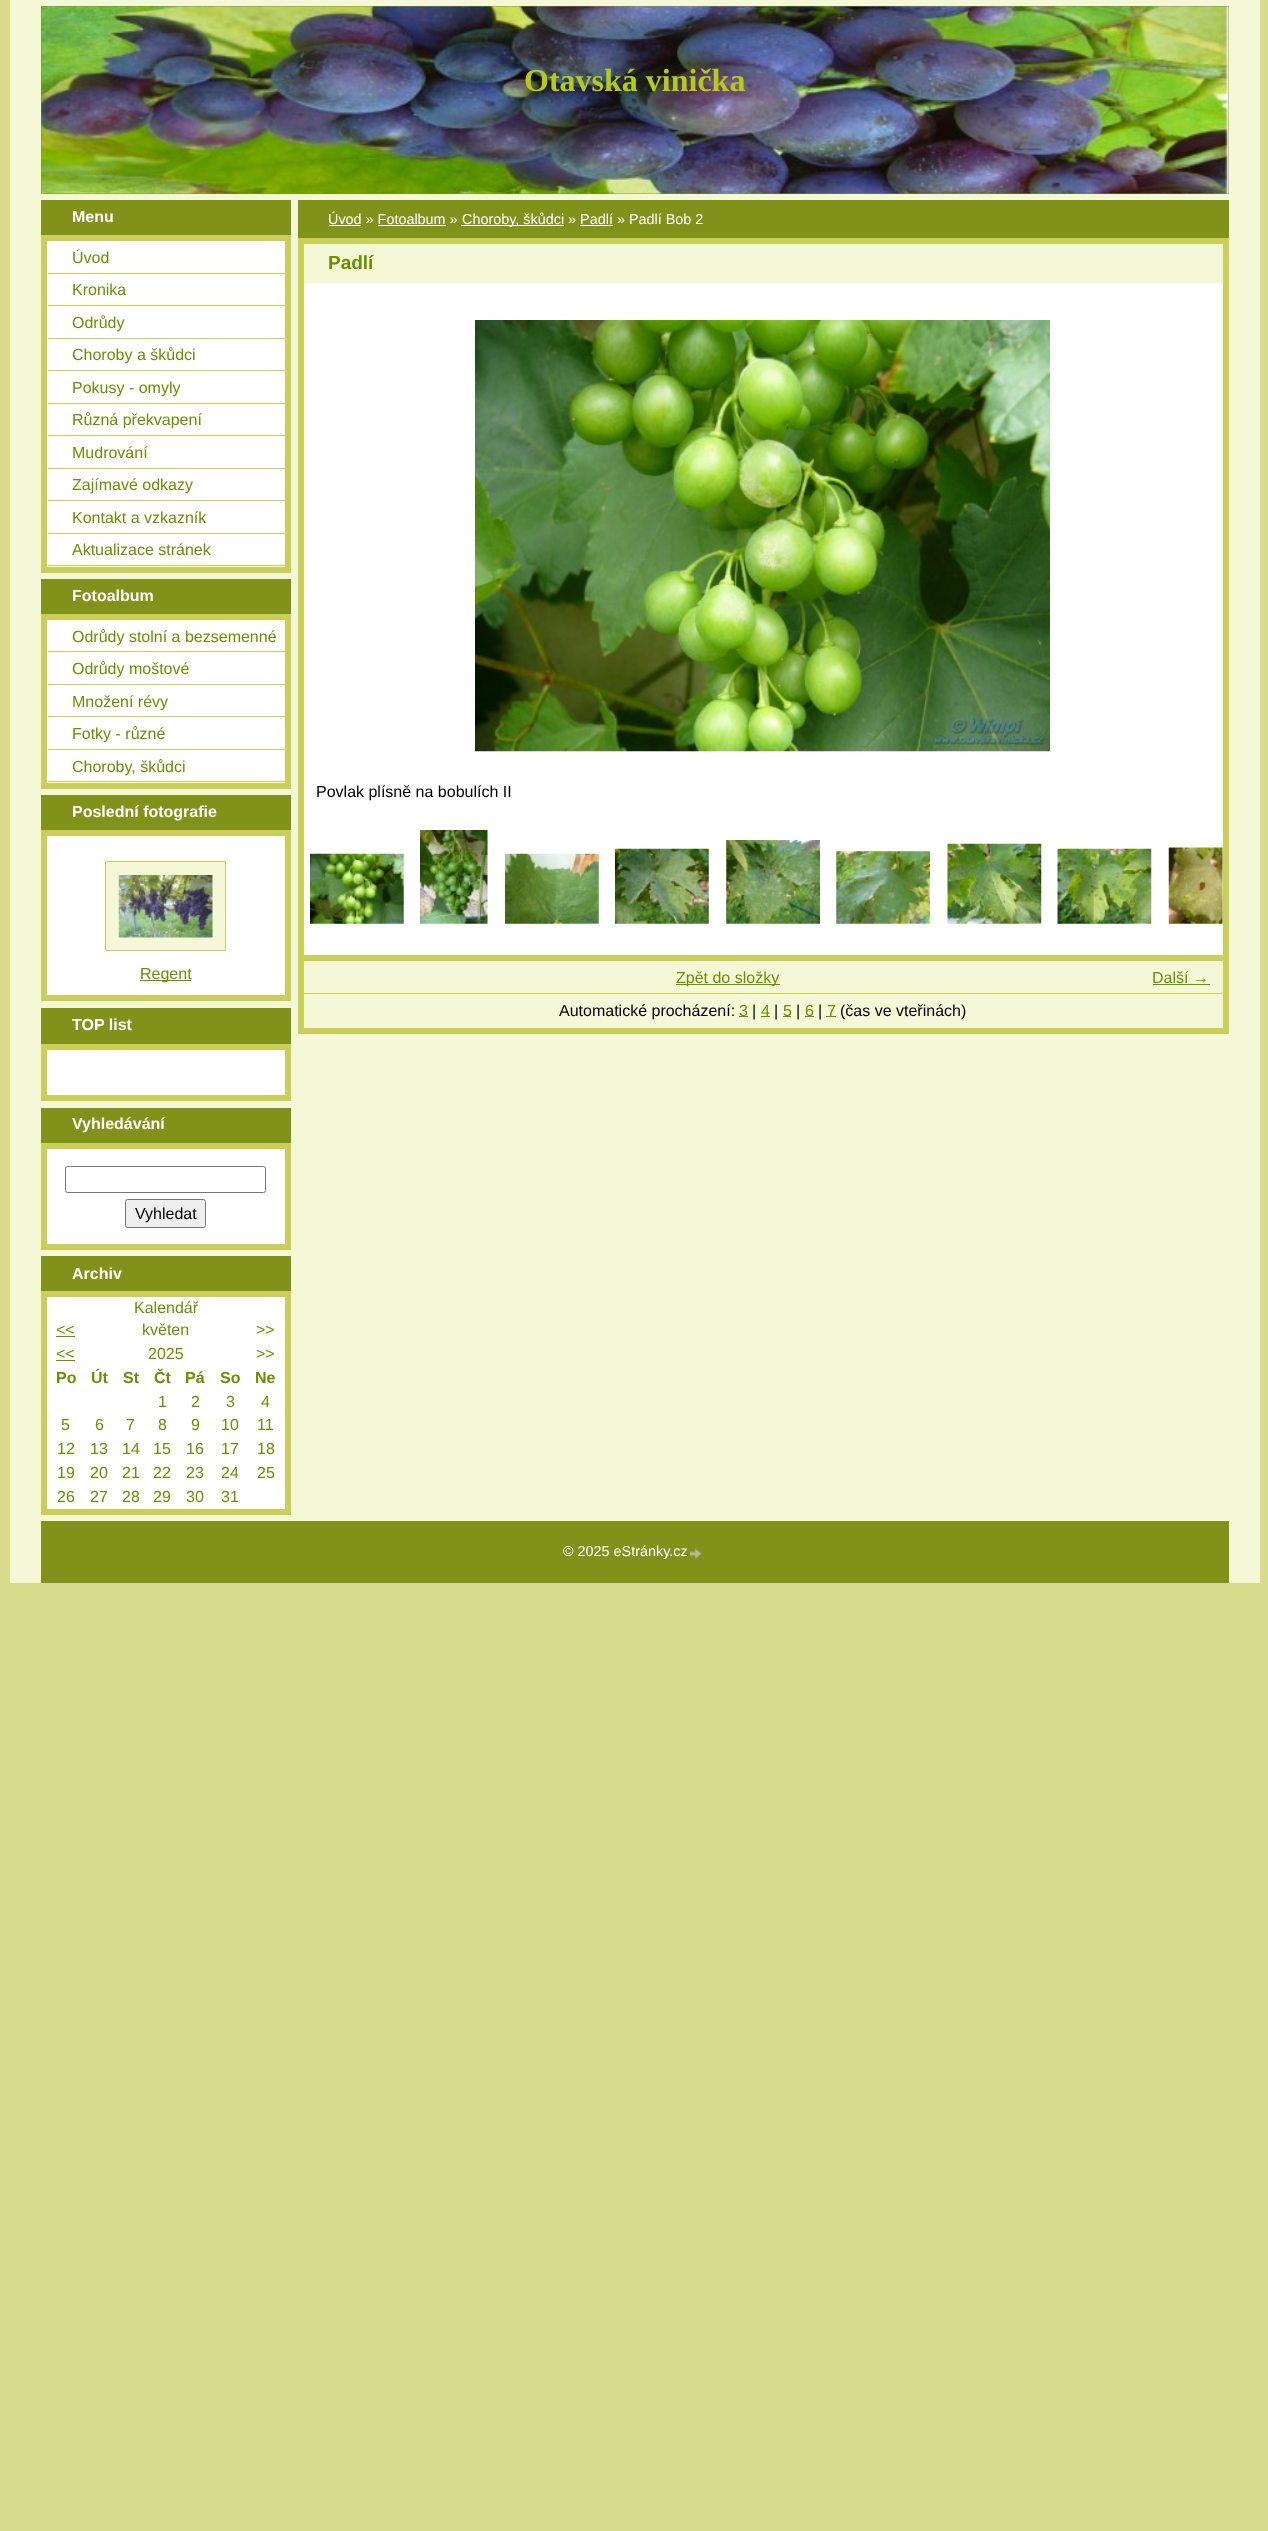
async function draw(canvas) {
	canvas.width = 1268;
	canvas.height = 2531;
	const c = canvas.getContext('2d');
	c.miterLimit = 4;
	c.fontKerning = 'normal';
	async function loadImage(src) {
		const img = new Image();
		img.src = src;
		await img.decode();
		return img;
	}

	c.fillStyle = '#d8dd8d';
	c.fillRect(0, 0, 1268, 2531);
	c.fillStyle = '#f5f8d7';
	c.fillRect(10, 0, 1250, 1583);
	c.fillStyle = '#809219';
	c.fillRect(41, 6, 1188, 188);
	c.drawImage(await loadImage('img1.png'), 41, 6, 1188, 188);
	c.font = 'bold 32px Liberation Serif';
	c.fillStyle = '#b5cb16';
	c.fillText('Otavská vinička', 524, 91);
	c.fillStyle = '#809219';
	c.fillRect(41, 200, 250, 35);
	c.font = 'bold 16px Liberation Sans';
	c.fillStyle = '#fff';
	c.fillText('Menu', 72, 222);
	c.beginPath();
	c.rect(44, 238, 244, 332);
	c.fill();
	c.strokeStyle = '#cacf59';
	c.lineWidth = 6;
	c.stroke();
	c.fillStyle = '#cacf59';
	c.fillRect(48, 273, 237, 1);
	c.font = '16px Liberation Sans';
	c.fillStyle = '#689101';
	c.fillText('Úvod', 72, 263);
	c.fillStyle = '#cacf59';
	c.fillRect(48, 305, 237, 1);
	c.fillStyle = '#689101';
	c.fillText('Kronika', 72, 295);
	c.fillStyle = '#cacf59';
	c.fillRect(48, 338, 237, 1);
	c.fillStyle = '#689101';
	c.fillText('Odrůdy', 72, 328);
	c.fillStyle = '#cacf59';
	c.fillRect(48, 370, 237, 1);
	c.fillStyle = '#689101';
	c.fillText('Choroby a škůdci', 72, 360);
	c.fillStyle = '#cacf59';
	c.fillRect(48, 403, 237, 1);
	c.fillStyle = '#689101';
	c.fillText('Pokusy - omyly', 72, 393);
	c.fillStyle = '#cacf59';
	c.fillRect(48, 435, 237, 1);
	c.fillStyle = '#689101';
	c.fillText('Různá překvapení', 72, 425);
	c.fillStyle = '#cacf59';
	c.fillRect(48, 468, 237, 1);
	c.fillStyle = '#689101';
	c.fillText('Mudrování', 72, 458);
	c.fillStyle = '#cacf59';
	c.fillRect(48, 500, 237, 1);
	c.fillStyle = '#689101';
	c.fillText('Zajímavé odkazy', 72, 490);
	c.fillStyle = '#cacf59';
	c.fillRect(48, 533, 237, 1);
	c.fillStyle = '#689101';
	c.fillText('Kontakt a vzkazník', 72, 523);
	c.fillStyle = '#cacf59';
	c.fillRect(48, 565, 237, 1);
	c.fillStyle = '#689101';
	c.fillText('Aktualizace stránek', 72, 555);
	c.fillStyle = '#809219';
	c.fillRect(41, 579, 250, 35);
	c.font = 'bold 16px Liberation Sans';
	c.fillStyle = '#fff';
	c.fillText('Fotoalbum', 72, 601);
	c.beginPath();
	c.rect(44, 617, 244, 169);
	c.fill();
	c.stroke();
	c.fillStyle = '#cacf59';
	c.fillRect(48, 651, 237, 1);
	c.font = '16px Liberation Sans';
	c.fillStyle = '#689101';
	c.fillText('Odrůdy stolní a bezsemenné', 72, 642);
	c.fillStyle = '#cacf59';
	c.fillRect(48, 684, 237, 1);
	c.fillStyle = '#689101';
	c.fillText('Odrůdy moštové', 72, 674);
	c.fillStyle = '#cacf59';
	c.fillRect(48, 716, 237, 1);
	c.fillStyle = '#689101';
	c.fillText('Množení révy', 72, 707);
	c.fillStyle = '#cacf59';
	c.fillRect(48, 749, 237, 1);
	c.fillStyle = '#689101';
	c.fillText('Fotky - různé', 72, 739);
	c.fillStyle = '#cacf59';
	c.fillRect(48, 781, 237, 1);
	c.fillStyle = '#689101';
	c.fillText('Choroby, škůdci', 72, 772);
	c.fillStyle = '#809219';
	c.fillRect(41, 795, 250, 35);
	c.font = 'bold 16px Liberation Sans';
	c.fillStyle = '#fff';
	c.fillText('Poslední fotografie', 72, 817);
	c.beginPath();
	c.rect(44, 833, 244, 165);
	c.fill();
	c.stroke();
	c.fillStyle = '#f5f8d7';
	c.beginPath();
	c.rect(105.5, 861.5, 120, 89);
	c.fill();
	c.lineWidth = 1;
	c.stroke();
	c.drawImage(await loadImage('img2.png'), 118, 875, 95, 63);
	c.fillStyle = '#689101';
	c.fillRect(140, 980, 51, 1);
	c.font = '16px Liberation Sans';
	c.fillText('Regent', 140, 979);
	c.fillStyle = '#809219';
	c.fillRect(41, 1008, 250, 36);
	c.font = 'bold 16px Liberation Sans';
	c.fillStyle = '#fff';
	c.fillText('TOP list', 72, 1030);
	c.beginPath();
	c.rect(44, 1047, 244, 51);
	c.fill();
	c.lineWidth = 6;
	c.stroke();
	c.fillStyle = '#809219';
	c.fillRect(41, 1108, 250, 35);
	c.fillStyle = '#fff';
	c.fillText('Vyhledávání', 72, 1129);
	c.beginPath();
	c.rect(44, 1146, 244, 101);
	c.fill();
	c.stroke();
	c.beginPath();
	c.roundRect(65.5, 1166.5, 200, 26, 2);
	c.strokeStyle = '#767676';
	c.lineWidth = 1;
	c.stroke();
	c.fillStyle = '#efefef';
	c.beginPath();
	c.roundRect(125.5, 1199.5, 80, 28, 2);
	c.fill();
	c.stroke();
	c.font = '16px Liberation Sans';
	c.fillStyle = '#000';
	c.fillText('Vyhledat', 135, 1219);
	c.fillStyle = '#809219';
	c.fillRect(41, 1256, 250, 35);
	c.font = 'bold 16px Liberation Sans';
	c.fillStyle = '#fff';
	c.fillText('Archiv', 72, 1279);
	c.beginPath();
	c.rect(44, 1294, 244, 218);
	c.fill();
	c.strokeStyle = '#cacf59';
	c.lineWidth = 6;
	c.stroke();
	c.font = '16px Liberation Sans';
	c.fillStyle = '#689101';
	c.fillText('Kalendář', 134, 1313);
	c.fillText('<<', 56, 1335);
	c.fillRect(56, 1336, 19, 1);
	for (const [text, x, y] of [
		['květen', 142, 1335],
		['>>', 256, 1335],
		['<<', 56, 1359],
	]) {
		c.fillText(text, x, y);
	}
	c.fillRect(56, 1360, 19, 1);
	c.fillText('2025', 148, 1359);
	c.fillText('>>', 256, 1359);
	c.font = 'bold 16px Liberation Sans';
	for (const [text, x, y] of [
		['Po', 56, 1383],
		['Út', 91, 1383],
		['St', 123, 1383],
		['Čt', 154, 1383],
		['Pá', 185, 1383],
		['So', 220, 1383],
		['Ne', 255, 1383],
	]) {
		c.fillText(text, x, y);
	}
	c.font = '16px Liberation Sans';
	for (const [text, x, y] of [
		['1', 158, 1407],
		['2', 191, 1407],
		['3', 226, 1407],
		['4', 261, 1407],
		['5', 61, 1430],
		['6', 95, 1430],
		['7', 126, 1430],
		['8', 158, 1430],
		['9', 191, 1430],
		['10', 221, 1430],
		['11', 257, 1430],
		['12', 57, 1454],
		['13', 90, 1454],
		['14', 122, 1454],
		['15', 153, 1454],
		['16', 186, 1454],
		['17', 221, 1454],
		['18', 257, 1454],
		['19', 57, 1478],
		['20', 90, 1478],
		['21', 122, 1478],
		['22', 153, 1478],
		['23', 186, 1478],
		['24', 221, 1478],
		['25', 257, 1478],
		['26', 57, 1502],
		['27', 90, 1502],
		['28', 122, 1502],
		['29', 153, 1502],
		['30', 186, 1502],
		['31', 221, 1502],
	]) {
		c.fillText(text, x, y);
	}
	c.fillStyle = '#809219';
	c.fillRect(298, 200, 931, 38);
	c.font = '14.4px Liberation Sans';
	c.fillStyle = '#fff';
	c.fillText('Úvod » Fotoalbum »', 328, 224);
	c.fillRect(329, 225, 32, 1);
	c.fillRect(461, 225, 103, 1);
	c.fillText('Choroby, škůdci » Padlí » Padlí Bob 2', 462, 224);
	for (const [x, y, w, h, color] of [
		[378, 225, 68, 1, '#fff'],
		[580, 225, 33, 1, '#fff'],
		[304, 283, 919, 672, '#fff'],
	]) {
		c.fillStyle = color;
		c.fillRect(x, y, w, h);
	}
	c.strokeRect(301, 241, 925, 790);
	c.font = 'bold 19px Liberation Sans';
	c.fillStyle = '#689101';
	c.fillText('Padlí', 328, 269);
	c.drawImage(await loadImage('img3.png'), 475, 320, 575, 432);
	c.font = '16px Liberation Sans';
	c.fillStyle = '#000';
	c.fillText('Povlak plísně na bobulích II', 316, 797);
	c.drawImage(await loadImage('img4.png'), 310, 853, 94, 71);
	c.drawImage(await loadImage('img5.png'), 420, 830, 68, 94);
	c.drawImage(await loadImage('img6.png'), 505, 853, 94, 71);
	c.drawImage(await loadImage('img7.png'), 615, 848, 94, 76);
	c.drawImage(await loadImage('img8.png'), 726, 840, 94, 84);
	c.drawImage(await loadImage('img9.png'), 836, 851, 94, 73);
	c.drawImage(await loadImage('img10.png'), 947, 843, 95, 81);
	c.drawImage(await loadImage('img11.png'), 1057, 848, 95, 76);
	c.drawImage(await loadImage('img12.png'), 1168, 847, 55, 77);
	c.fillStyle = '#cacf59';
	c.fillRect(304, 955, 919, 6);
	c.fillStyle = '#689101';
	c.fillRect(676, 984, 104, 1);
	c.fillText('Zpět do složky', 676, 983);
	c.fillText('Další →', 1152, 983);
	c.fillRect(1153, 984, 57, 1);
	c.fillStyle = '#cacf59';
	c.fillRect(304, 993, 919, 1);
	c.fillStyle = '#000';
	c.fillText('Automatické procházení:', 559, 1016);
	c.fillStyle = '#689101';
	c.fillRect(739, 1016, 9, 1);
	c.fillText('3', 739, 1016);
	c.fillStyle = '#000';
	c.fillText('|', 752, 1016);
	c.fillStyle = '#689101';
	c.fillText('4', 761, 1016);
	c.fillRect(761, 1016, 9, 1);
	c.fillStyle = '#000';
	c.fillText('|', 774, 1016);
	c.fillStyle = '#689101';
	c.fillRect(783, 1016, 8, 1);
	c.fillText('5', 783, 1016);
	c.fillStyle = '#000';
	c.fillText('|', 796, 1016);
	c.fillStyle = '#689101';
	c.fillRect(805, 1016, 9, 1);
	c.fillText('6', 805, 1016);
	c.fillStyle = '#000';
	c.fillText('|', 818, 1016);
	c.fillStyle = '#689101';
	c.fillText('7', 827, 1016);
	c.fillRect(826, 1016, 10, 1);
	c.fillStyle = '#000';
	c.fillText('(čas ve vteřinách)', 840, 1016);
	c.fillStyle = '#809219';
	c.fillRect(41, 1521, 1188, 62);
	c.font = '14.4px Liberation Sans';
	c.fillStyle = '#fff';
	c.fillText('© 2025 eStránky.cz', 563, 1556);
	c.drawImage(await loadImage('img13.png'), 690, 1548, 12, 11);
}

draw(document.querySelector('canvas'));
